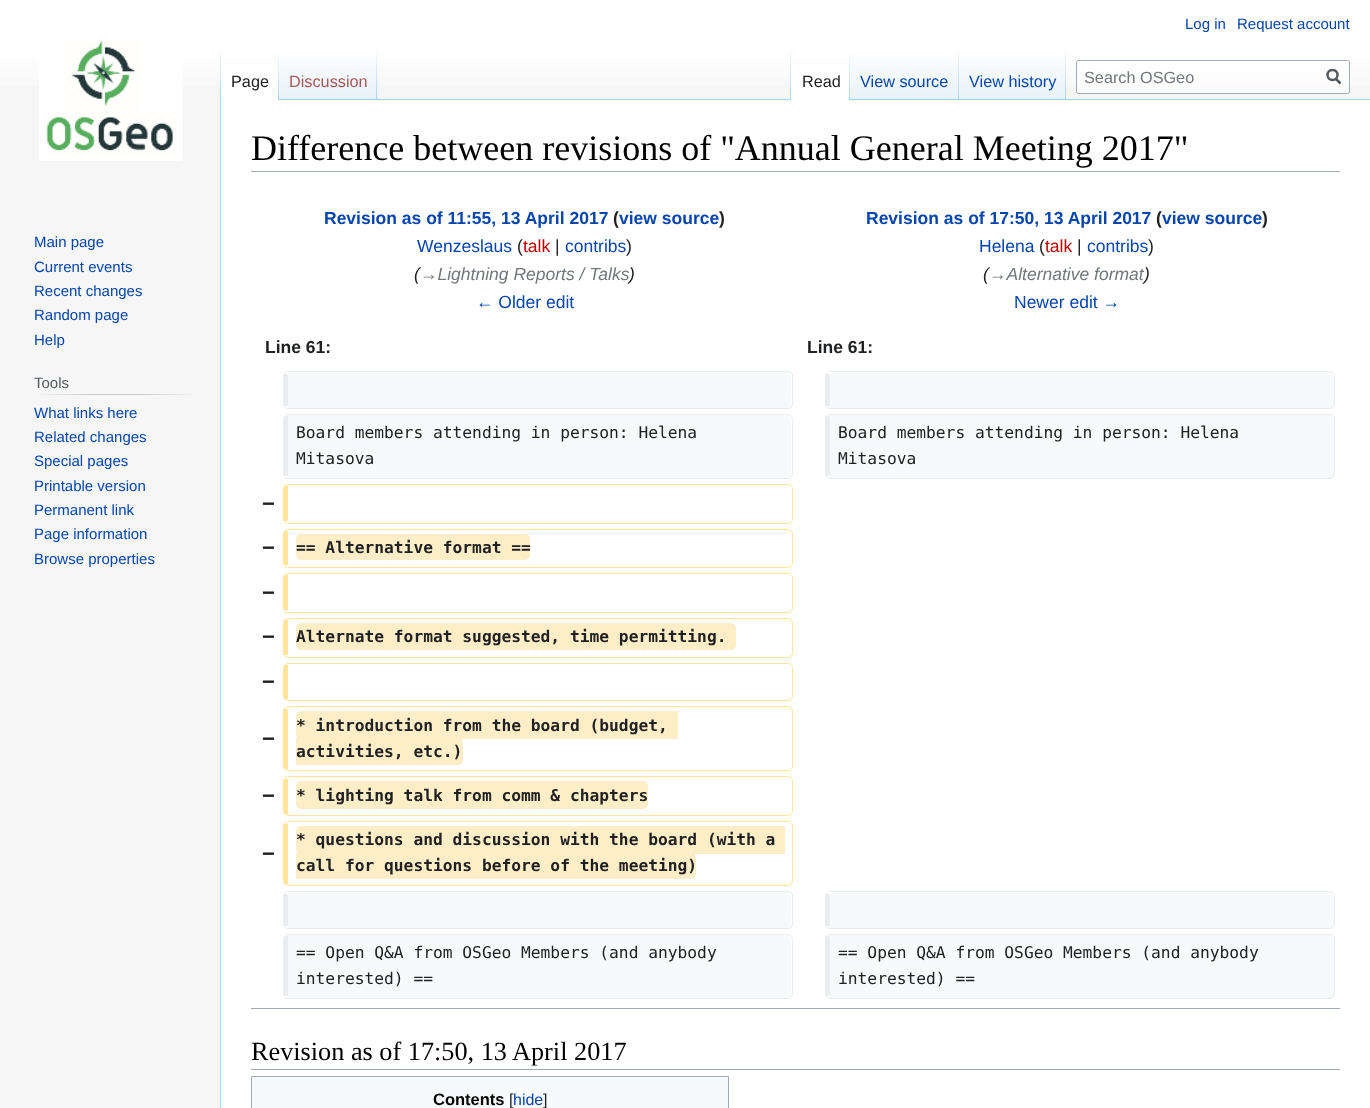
async function draw(canvas) {
	canvas.width = 1370;
	canvas.height = 1108;
	const c = canvas.getContext('2d');
	c.miterLimit = 4;
	c.fontKerning = 'normal';
	async function loadImage(src) {
		const img = new Image();
		img.src = src;
		await img.decode();
		return img;
	}
	let gradient;

	c.fillStyle = '#f6f6f6';
	c.fillRect(0, 0, 1370, 1108);
	gradient = c.createLinearGradient(685, 0, 685, 100);
	gradient.addColorStop(0.5, '#fff');
	gradient.addColorStop(1, '#f6f6f6');
	c.fillStyle = gradient;
	c.fillRect(0, 0, 1370, 86);
	c.font = '15px Liberation Sans';
	c.fillStyle = '#0645ad';
	c.fillText('Log in', 1185, 29);
	c.fillText('Request account', 1237, 29);
	c.fillStyle = '#a7d7f9';
	c.fillRect(220, 99, 1, 1009);
	gradient = c.createLinearGradient(221, 50, 221, 100);
	gradient.addColorStop(0, '#a7d7f900');
	gradient.addColorStop(1, '#a7d7f9');
	c.fillStyle = gradient;
	c.fillRect(220, 50, 1, 50);
	c.fillStyle = '#fff';
	c.fillRect(221, 64, 57, 36);
	gradient = c.createLinearGradient(278, 50, 278, 100);
	gradient.addColorStop(0, '#fff');
	gradient.addColorStop(1, '#a7d7f9');
	c.fillStyle = gradient;
	c.fillRect(278, 50, 1, 50);
	c.font = '16.25px Liberation Sans';
	c.fillStyle = '#202122';
	c.fillText('Page', 231, 87);
	gradient = c.createLinearGradient(328, 100, 328, 50);
	gradient.addColorStop(0, '#77c1f6');
	gradient.addColorStop(0.03, '#e8f2f8');
	gradient.addColorStop(1, '#fff');
	c.fillStyle = gradient;
	c.fillRect(279, 57, 99, 43);
	gradient = c.createLinearGradient(377, 50, 377, 100);
	gradient.addColorStop(0, '#a7d7f900');
	gradient.addColorStop(1, '#a7d7f9');
	c.fillStyle = gradient;
	c.fillRect(376, 50, 1, 50);
	c.fillStyle = '#a55858';
	c.fillText('Discussion', 289, 87);
	c.fillStyle = '#a7d7f9';
	c.fillRect(378, 99, 992, 1);
	gradient = c.createLinearGradient(791, 50, 791, 100);
	gradient.addColorStop(0, '#a7d7f900');
	gradient.addColorStop(1, '#a7d7f9');
	c.fillStyle = gradient;
	c.fillRect(790, 50, 1, 50);
	c.fillStyle = '#fff';
	c.fillRect(791, 64, 58, 36);
	gradient = c.createLinearGradient(849, 50, 849, 100);
	gradient.addColorStop(0, '#fff');
	gradient.addColorStop(1, '#a7d7f9');
	c.fillStyle = gradient;
	c.fillRect(849, 50, 1, 50);
	c.fillStyle = '#202122';
	c.fillText('Read', 802, 87);
	gradient = c.createLinearGradient(904, 100, 904, 50);
	gradient.addColorStop(0, '#77c1f6');
	gradient.addColorStop(0.03, '#e8f2f8');
	gradient.addColorStop(1, '#fff');
	c.fillStyle = gradient;
	c.fillRect(850, 57, 109, 43);
	gradient = c.createLinearGradient(958, 50, 958, 100);
	gradient.addColorStop(0, '#a7d7f900');
	gradient.addColorStop(1, '#a7d7f9');
	c.fillStyle = gradient;
	c.fillRect(958, 50, 1, 50);
	c.fillStyle = '#0645ad';
	c.fillText('View source', 860, 87);
	gradient = c.createLinearGradient(1013, 100, 1013, 50);
	gradient.addColorStop(0, '#77c1f6');
	gradient.addColorStop(0.03, '#e8f2f8');
	gradient.addColorStop(1, '#fff');
	c.fillStyle = gradient;
	c.fillRect(959, 57, 107, 43);
	gradient = c.createLinearGradient(1066, 50, 1066, 100);
	gradient.addColorStop(0, '#a7d7f900');
	gradient.addColorStop(1, '#a7d7f9');
	c.fillStyle = gradient;
	c.fillRect(1065, 50, 1, 50);
	c.fillStyle = '#0645ad';
	c.fillText('View history', 969, 87);
	c.fillStyle = '#ffffff80';
	c.beginPath();
	c.roundRect(1076.5, 60.5, 273, 33, 2);
	c.fill();
	c.strokeStyle = '#a2a9b1';
	c.stroke();
	c.fillStyle = '#72777d';
	c.fillText('Search OSGeo', 1084, 83);
	c.beginPath();
	c.moveTo(1340.5, 83.5);
	c.lineTo(1335.5, 78.5);
	c.strokeStyle = '#54595d';
	c.lineWidth = 2.5;
	c.stroke();
	c.save();
	c.beginPath();
	c.rect(1326, 69, 15, 16);
	c.clip();
	c.beginPath();
	c.arc(1332.5, 75, 5, 0, 2 * Math.PI);
	c.stroke();
	c.restore();
	c.drawImage(await loadImage('img1.png'), 39, 40, 144, 121);
	c.font = '15px Liberation Sans';
	c.fillStyle = '#0645ad';
	for (const [text, x, y] of [
		['Main page', 34, 247],
		['Current events', 34, 272],
		['Recent changes', 34, 296],
		['Random page', 34, 320],
		['Help', 34, 345],
	]) {
		c.fillText(text, x, y);
	}
	gradient = c.createLinearGradient(34, 394, 198, 394);
	gradient.addColorStop(0, '#f6f6f6');
	gradient.addColorStop(0.33, '#c8ccd1');
	gradient.addColorStop(0.66, '#c8ccd1');
	gradient.addColorStop(1, '#f6f6f6');
	c.fillStyle = gradient;
	c.fillRect(34, 394, 164, 1);
	c.fillStyle = '#54595d';
	c.fillText('Tools', 34, 388);
	c.fillStyle = '#0645ad';
	for (const [text, x, y] of [
		['What links here', 34, 418],
		['Related changes', 34, 442],
		['Special pages', 34, 466],
		['Printable version', 34, 491],
		['Permanent link', 34, 515],
		['Page information', 34, 539],
		['Browse properties', 34, 564],
	]) {
		c.fillText(text, x, y);
	}
	c.fillStyle = '#fff';
	c.fillRect(221, 100, 1149, 1008);
	c.fillStyle = '#a2a9b1';
	c.fillRect(251, 171, 1089, 1);
	c.font = '36px Liberation Serif';
	c.fillStyle = '#000';
	c.fillText('Difference between revisions of "Annual General Meeting 2017"', 251, 160);
	c.font = 'bold 17.5px Liberation Sans';
	c.fillStyle = '#0645ad';
	c.fillText('Revision as of 11:55, 13 April 2017', 324, 224);
	c.fillStyle = '#202122';
	c.fillText('(', 613, 224);
	c.fillStyle = '#0645ad';
	c.fillText('view source', 619, 224);
	c.fillStyle = '#202122';
	c.fillText(')', 719, 224);
	c.font = '17.5px Liberation Sans';
	c.fillStyle = '#0645ad';
	c.fillText('Wenzeslaus', 417, 252);
	c.fillStyle = '#202122';
	c.fillText('(', 517, 252);
	c.fillStyle = '#ba0000';
	c.fillText('talk', 523, 252);
	c.fillStyle = '#202122';
	c.fillText('|', 555, 252);
	c.fillStyle = '#0645ad';
	c.fillText('contribs', 565, 252);
	c.fillStyle = '#202122';
	c.fillText(')', 626, 252);
	c.font = 'italic 17.5px Liberation Sans';
	c.fillText('(', 414, 280);
	c.fillStyle = '#72777d';
	c.fillText('→Lightning Reports / Talks', 420, 280);
	c.fillStyle = '#202122';
	c.fillText(')', 629, 280);
	c.font = '17.5px Liberation Sans';
	c.fillStyle = '#0645ad';
	c.fillText('← Older edit', 476, 308);
	c.font = 'bold 17.5px Liberation Sans';
	c.fillText('Revision as of 17:50, 13 April 2017', 866, 224);
	c.fillStyle = '#202122';
	c.fillText('(', 1156, 224);
	c.fillStyle = '#0645ad';
	c.fillText('view source', 1162, 224);
	c.fillStyle = '#202122';
	c.fillText(')', 1262, 224);
	c.font = '17.5px Liberation Sans';
	c.fillStyle = '#0645ad';
	c.fillText('Helena', 979, 252);
	c.fillStyle = '#202122';
	c.fillText('(', 1039, 252);
	c.fillStyle = '#ba0000';
	c.fillText('talk', 1045, 252);
	c.fillStyle = '#202122';
	c.fillText('|', 1077, 252);
	c.fillStyle = '#0645ad';
	c.fillText('contribs', 1087, 252);
	c.fillStyle = '#202122';
	c.fillText(')', 1148, 252);
	c.font = 'italic 17.5px Liberation Sans';
	c.fillText('(', 983, 280);
	c.fillStyle = '#72777d';
	c.fillText('→Alternative format', 989, 280);
	c.fillStyle = '#202122';
	c.fillText(')', 1144, 280);
	c.font = '17.5px Liberation Sans';
	c.fillStyle = '#0645ad';
	c.fillText('Newer edit →', 1014, 308);
	c.font = 'bold 17.5px Liberation Sans';
	c.fillStyle = '#202122';
	c.fillText('Line 61:', 265, 353);
	c.fillText('Line 61:', 807, 353);
	c.fillStyle = '#f8f9fa';
	c.beginPath();
	c.moveTo(288, 372);
	c.lineTo(787, 372);
	c.bezierCurveTo(792, 373, 791, 378, 791, 381);
	c.lineTo(791, 394);
	c.bezierCurveTo(791, 398, 793, 407, 787, 408);
	c.lineTo(288, 408);
	c.lineTo(288, 403);
	c.closePath();
	c.fill();
	c.beginPath();
	c.roundRect(283.5, 371.5, 509, 37, 4.5);
	c.strokeStyle = '#eaecf0';
	c.lineWidth = 1;
	c.stroke();
	c.fillStyle = '#eaecf0';
	c.fillRect(284, 374, 4, 32);
	c.fillStyle = '#f8f9fa';
	c.beginPath();
	c.moveTo(830, 372);
	c.lineTo(1330, 372);
	c.bezierCurveTo(1334, 373, 1334, 378, 1334, 381);
	c.lineTo(1334, 394);
	c.bezierCurveTo(1334, 398, 1336, 407, 1330, 408);
	c.lineTo(830, 408);
	c.lineTo(830, 403);
	c.closePath();
	c.fill();
	c.beginPath();
	c.roundRect(825.5, 371.5, 509, 37, 4.5);
	c.stroke();
	c.fillStyle = '#eaecf0';
	c.fillRect(826, 374, 4, 32);
	c.fillStyle = '#f8f9fa';
	c.beginPath();
	c.moveTo(288, 415);
	c.lineTo(787, 415);
	c.bezierCurveTo(789, 415, 791, 417, 791, 419);
	c.lineTo(791, 473);
	c.bezierCurveTo(791, 476, 789, 478, 787, 478);
	c.lineTo(288, 478);
	c.lineTo(288, 473);
	c.closePath();
	c.fill();
	c.beginPath();
	c.roundRect(283.5, 414.5, 509, 64, 4.5);
	c.stroke();
	c.fillStyle = '#eaecf0';
	c.fillRect(284, 416, 4, 60);
	c.font = '16.25px DejaVu Sans Mono';
	c.fillStyle = '#202122';
	c.fillText('Board members attending in person: Helena', 296, 438);
	c.fillText('Mitasova', 296, 464);
	c.fillStyle = '#f8f9fa';
	c.beginPath();
	c.moveTo(830, 415);
	c.lineTo(1330, 415);
	c.bezierCurveTo(1332, 415, 1334, 417, 1334, 419);
	c.lineTo(1334, 473);
	c.bezierCurveTo(1334, 476, 1332, 478, 1330, 478);
	c.lineTo(830, 478);
	c.lineTo(830, 473);
	c.closePath();
	c.fill();
	c.beginPath();
	c.roundRect(825.5, 414.5, 509, 64, 4.5);
	c.stroke();
	c.fillStyle = '#eaecf0';
	c.fillRect(826, 416, 4, 60);
	c.fillStyle = '#202122';
	c.fillText('Board members attending in person: Helena', 838, 438);
	c.fillText('Mitasova', 838, 464);
	c.font = 'bold 22px Liberation Sans';
	c.fillText('−', 262, 511);
	c.beginPath();
	c.roundRect(283.5, 484.5, 509, 39, 4.5);
	c.strokeStyle = '#ffe49c';
	c.stroke();
	c.fillStyle = '#ffe49c';
	c.fillRect(284, 486, 4, 35);
	c.fillStyle = '#202122';
	c.fillText('−', 262, 555);
	c.beginPath();
	c.roundRect(283.5, 529.5, 509, 38, 4.5);
	c.stroke();
	c.fillStyle = '#ffe49c';
	c.fillRect(284, 531, 4, 34);
	c.fillStyle = '#feeec8';
	c.beginPath();
	c.roundRect(296, 534, 234, 26, 5);
	c.fill();
	c.font = 'bold 16.25px DejaVu Sans Mono';
	c.fillStyle = '#202122';
	c.fillText('== Alternative format ==', 296, 553);
	c.font = 'bold 22px Liberation Sans';
	c.fillText('−', 262, 600);
	c.beginPath();
	c.roundRect(283.5, 573.5, 509, 39, 4.5);
	c.stroke();
	c.fillStyle = '#ffe49c';
	c.fillRect(284, 575, 4, 35);
	c.fillStyle = '#202122';
	c.fillText('−', 262, 644);
	c.beginPath();
	c.roundRect(283.5, 618.5, 509, 39, 4.5);
	c.stroke();
	c.fillStyle = '#ffe49c';
	c.fillRect(284, 620, 4, 35);
	c.fillStyle = '#feeec8';
	c.beginPath();
	c.roundRect(296, 623, 440, 27, 5);
	c.fill();
	c.font = 'bold 16.25px DejaVu Sans Mono';
	c.fillStyle = '#202122';
	c.fillText('Alternate format suggested, time permitting.', 296, 642);
	c.font = 'bold 22px Liberation Sans';
	c.fillText('−', 262, 689);
	c.beginPath();
	c.roundRect(283.5, 663.5, 509, 37, 4.5);
	c.stroke();
	c.fillStyle = '#ffe49c';
	c.fillRect(284, 665, 4, 34);
	c.fillStyle = '#202122';
	c.fillText('−', 262, 746);
	c.beginPath();
	c.roundRect(283.5, 706.5, 509, 64, 4.5);
	c.stroke();
	c.fillStyle = '#ffe49c';
	c.fillRect(284, 709, 4, 60);
	c.fillStyle = '#feeec8';
	c.beginPath();
	c.roundRect(296, 711, 372, 28, [5, 0, 0, 5]);
	c.fill();
	c.font = 'bold 16.25px DejaVu Sans Mono';
	c.fillStyle = '#202122';
	c.fillText('* introduction from the board (budget,', 296, 731);
	c.fillStyle = '#feeec8';
	c.fillRect(668, 711, 10, 28);
	c.beginPath();
	c.roundRect(296, 738, 167, 27, [0, 5, 5, 0]);
	c.fill();
	c.fillStyle = '#202122';
	c.fillText('activities, etc.)', 296, 757);
	c.font = 'bold 22px Liberation Sans';
	c.fillText('−', 262, 803);
	c.beginPath();
	c.roundRect(283.5, 776.5, 509, 39, 4.5);
	c.stroke();
	c.fillStyle = '#ffe49c';
	c.fillRect(284, 779, 4, 35);
	c.fillStyle = '#feeec8';
	c.beginPath();
	c.roundRect(296, 781, 352, 28, 5);
	c.fill();
	c.font = 'bold 16.25px DejaVu Sans Mono';
	c.fillStyle = '#202122';
	c.fillText('* lighting talk from comm & chapters', 296, 801);
	c.font = 'bold 22px Liberation Sans';
	c.fillText('−', 262, 861);
	c.beginPath();
	c.roundRect(283.5, 821.5, 509, 64, 4.5);
	c.stroke();
	c.fillStyle = '#ffe49c';
	c.fillRect(284, 824, 4, 60);
	c.fillStyle = '#feeec8';
	c.beginPath();
	c.roundRect(296, 826, 479, 28, [5, 0, 0, 5]);
	c.fill();
	c.font = 'bold 16.25px DejaVu Sans Mono';
	c.fillStyle = '#202122';
	c.fillText('* questions and discussion with the board (with a', 296, 845);
	c.fillStyle = '#feeec8';
	c.fillRect(775, 826, 10, 28);
	c.beginPath();
	c.roundRect(296, 853, 400, 26, [0, 5, 5, 0]);
	c.fill();
	c.fillStyle = '#202122';
	c.fillText('call for questions before of the meeting)', 296, 871);
	c.fillStyle = '#f8f9fa';
	c.beginPath();
	c.moveTo(288, 892);
	c.lineTo(787, 892);
	c.bezierCurveTo(792, 893, 791, 898, 791, 901);
	c.lineTo(791, 914);
	c.bezierCurveTo(791, 918, 793, 927, 787, 928);
	c.lineTo(288, 928);
	c.lineTo(288, 923);
	c.closePath();
	c.fill();
	c.beginPath();
	c.roundRect(283.5, 891.5, 509, 37, 4.5);
	c.strokeStyle = '#eaecf0';
	c.stroke();
	c.fillStyle = '#eaecf0';
	c.fillRect(284, 894, 4, 32);
	c.fillStyle = '#f8f9fa';
	c.beginPath();
	c.moveTo(830, 892);
	c.lineTo(1330, 892);
	c.bezierCurveTo(1334, 893, 1334, 898, 1334, 901);
	c.lineTo(1334, 914);
	c.bezierCurveTo(1334, 918, 1336, 927, 1330, 928);
	c.lineTo(830, 928);
	c.lineTo(830, 923);
	c.closePath();
	c.fill();
	c.beginPath();
	c.roundRect(825.5, 891.5, 509, 37, 4.5);
	c.stroke();
	c.fillStyle = '#eaecf0';
	c.fillRect(826, 894, 4, 32);
	c.fillStyle = '#f8f9fa';
	c.beginPath();
	c.moveTo(288, 935);
	c.lineTo(787, 935);
	c.bezierCurveTo(789, 935, 791, 937, 791, 939);
	c.lineTo(791, 993);
	c.bezierCurveTo(791, 996, 789, 998, 787, 998);
	c.lineTo(288, 998);
	c.lineTo(288, 993);
	c.closePath();
	c.fill();
	c.beginPath();
	c.roundRect(283.5, 934.5, 509, 64, 4.5);
	c.stroke();
	c.fillStyle = '#eaecf0';
	c.fillRect(284, 936, 4, 60);
	c.font = '16.25px DejaVu Sans Mono';
	c.fillStyle = '#202122';
	c.fillText('== Open Q&A from OSGeo Members (and anybody', 296, 958);
	c.fillText('interested) ==', 296, 984);
	c.fillStyle = '#f8f9fa';
	c.beginPath();
	c.moveTo(830, 935);
	c.lineTo(1330, 935);
	c.bezierCurveTo(1332, 935, 1334, 937, 1334, 939);
	c.lineTo(1334, 993);
	c.bezierCurveTo(1334, 996, 1332, 998, 1330, 998);
	c.lineTo(830, 998);
	c.lineTo(830, 993);
	c.closePath();
	c.fill();
	c.beginPath();
	c.roundRect(825.5, 934.5, 509, 64, 4.5);
	c.stroke();
	c.fillStyle = '#eaecf0';
	c.fillRect(826, 936, 4, 60);
	c.fillStyle = '#202122';
	c.fillText('== Open Q&A from OSGeo Members (and anybody', 838, 958);
	c.fillText('interested) ==', 838, 984);
	c.fillStyle = '#a2a9b1';
	c.fillRect(251, 1008, 1089, 1);
	c.fillRect(251, 1069, 1089, 1);
	c.font = '26.25px Liberation Serif';
	c.fillStyle = '#000';
	c.fillText('Revision as of 17:50, 13 April 2017', 251, 1060);
	c.fillStyle = '#f8f9fa';
	c.beginPath();
	c.rect(251.5, 1076.5, 477, 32);
	c.fill();
	c.strokeStyle = '#a2a9b1';
	c.stroke();
	c.font = 'bold 16.5px Liberation Sans';
	c.fillStyle = '#000';
	c.fillText('Contents', 433, 1105);
	c.font = '16px Liberation Sans';
	c.fillStyle = '#202122';
	c.fillText('[', 509, 1105);
	c.fillStyle = '#0645ad';
	c.fillText('hide', 513, 1105);
	c.fillStyle = '#202122';
	c.fillText(']', 543, 1105);
}

draw(document.querySelector('canvas'));
